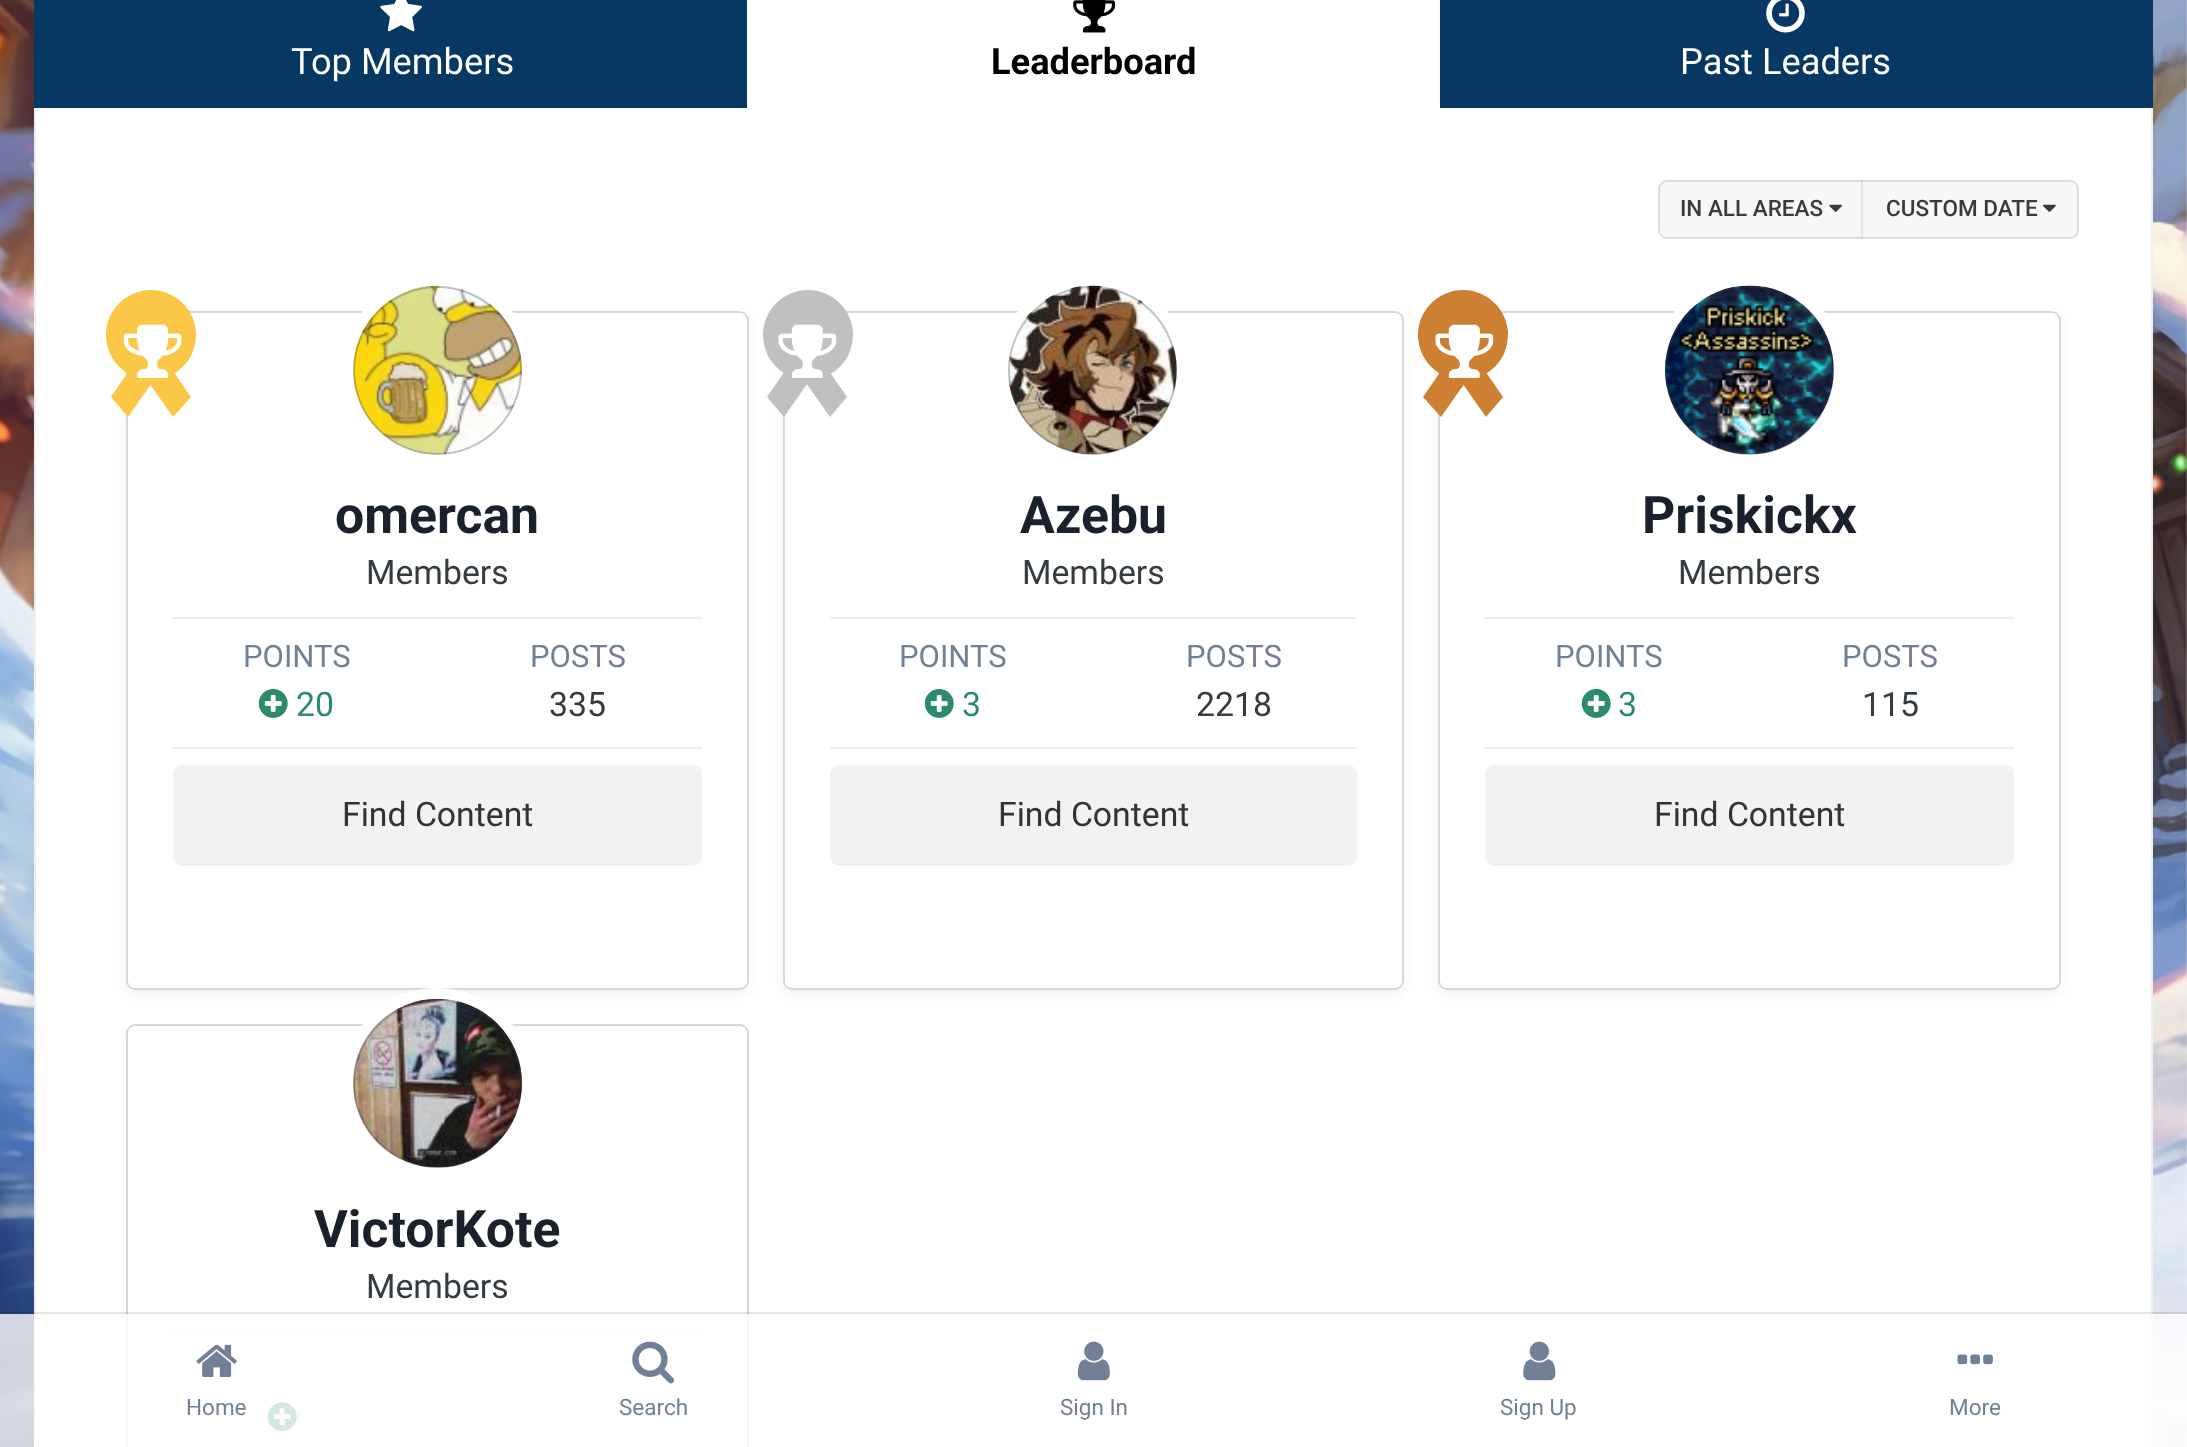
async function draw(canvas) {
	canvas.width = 2187;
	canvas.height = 1447;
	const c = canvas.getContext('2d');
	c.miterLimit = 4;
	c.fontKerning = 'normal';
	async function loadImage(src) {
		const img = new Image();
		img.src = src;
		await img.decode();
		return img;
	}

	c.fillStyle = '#fff';
	c.fillRect(0, 0, 2187, 1447);
	c.drawImage(await loadImage('img1.png'), 0, 0, 2187, 1447);
	c.fillStyle = '#073763';
	c.fillRect(34, 0, 2119, 108);
	c.drawImage(await loadImage('img2.png'), 380, 0, 42, 32);
	c.font = '36.25px Roboto';
	c.fillStyle = '#fff';
	c.fillText('Top Members', 291, 74);
	c.fillRect(747, 0, 693, 108);
	c.drawImage(await loadImage('img3.png'), 1073, 0, 43, 33);
	c.font = 'bold 36.25px Roboto';
	c.fillStyle = '#000';
	c.fillText('Leaderboard', 991, 74);
	c.drawImage(await loadImage('img4.png'), 1766, 0, 39, 33);
	c.font = '36.25px Roboto';
	c.fillStyle = '#fff';
	c.fillText('Past Leaders', 1680, 74);
	for (const [x, y, w, h, color] of [
		[36, 108, 2115, 1339, '#fff'],
		[2151, 108, 2, 1339, '#eeefef'],
		[34, 108, 2, 1339, '#eeefef'],
	]) {
		c.fillStyle = color;
		c.fillRect(x, y, w, h);
	}
	c.fillStyle = '#f7f7f7';
	c.beginPath();
	c.roundRect(1658, 180, 205, 59, [9, 0, 0, 9]);
	c.fill();
	c.drawImage(await loadImage('img5.png'), 1829, 204, 14, 8);
	c.beginPath();
	c.roundRect(1863, 180, 216, 59, [0, 9, 9, 0]);
	c.fill();
	c.fillStyle = '#e4e5e5';
	c.fillRect(1861, 180, 2, 59);
	c.drawImage(await loadImage('img6.png'), 2043, 204, 13, 8);
	c.beginPath();
	c.roundRect(1659, 181, 419, 57, 8);
	c.strokeStyle = '#0000001a';
	c.lineWidth = 2;
	c.stroke();
	c.font = '500 22.5px Roboto';
	c.fillStyle = '#353c41';
	c.fillText('IN ALL AREAS', 1680, 216);
	c.fillText('CUSTOM DATE', 1886, 216);
	c.save();
	c.beginPath();
	c.moveTo(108, 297);
	c.lineTo(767, 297);
	c.lineTo(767, 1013);
	c.lineTo(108, 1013);
	c.closePath();
	c.moveTo(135, 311);
	c.lineTo(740, 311);
	c.bezierCurveTo(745, 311, 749, 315, 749, 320);
	c.lineTo(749, 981);
	c.bezierCurveTo(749, 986, 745, 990, 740, 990);
	c.lineTo(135, 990);
	c.bezierCurveTo(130, 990, 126, 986, 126, 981);
	c.lineTo(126, 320);
	c.bezierCurveTo(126, 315, 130, 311, 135, 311);
	c.closePath();
	c.clip('evenodd');
	c.fillStyle = '#0000000d';
	c.filter = 'blur(5.5px)';
	c.beginPath();
	c.roundRect(126, 315, 623, 680, 9);
	c.fill();
	c.filter = 'none';
	c.restore();
	c.beginPath();
	c.roundRect(127, 312, 621, 677, 8);
	c.strokeStyle = '#353c4133';
	c.stroke();
	c.fillStyle = '#fac746';
	c.beginPath();
	c.arc(151, 335, 45, 0, 2 * Math.PI);
	c.fill();
	c.beginPath();
	c.moveTo(151, 339);
	c.lineTo(168, 360);
	c.lineTo(128, 417);
	c.lineTo(111, 397);
	c.closePath();
	c.fill();
	c.beginPath();
	c.moveTo(133, 360);
	c.lineTo(151, 339);
	c.lineTo(191, 397);
	c.lineTo(173, 417);
	c.closePath();
	c.fill();
	c.drawImage(await loadImage('img7.png'), 123, 324, 59, 54);
	c.beginPath();
	c.arc(437.5, 370.5, 90, 0, 2 * Math.PI);
	c.strokeStyle = '#fff';
	c.lineWidth = 11;
	c.stroke();
	c.fillStyle = '#fff';
	c.beginPath();
	c.arc(437.5, 370.5, 84.5, 0, 2 * Math.PI);
	c.fill();
	c.drawImage(await loadImage('img8.png'), 353, 285, 169, 170);
	c.beginPath();
	c.arc(437.5, 370.5, 83.5, 0, 2 * Math.PI);
	c.strokeStyle = '#353c414d';
	c.lineWidth = 2;
	c.stroke();
	c.font = 'bold 51.75px Roboto';
	c.fillStyle = '#1a202c';
	c.fillText('omercan', 335, 533);
	c.font = '33.75px Roboto';
	c.fillStyle = '#353c41';
	c.fillText('Members', 366, 584);
	c.fillStyle = '#efeff0';
	c.fillRect(173, 617, 529, 2);
	c.font = '31px Roboto';
	c.fillStyle = '#718096';
	c.fillText('POINTS', 243, 667);
	c.drawImage(await loadImage('img9.png'), 258, 689, 30, 29);
	c.font = '33.75px Roboto';
	c.fillStyle = '#2c8c69';
	c.fillText('20', 296, 716);
	c.font = '31px Roboto';
	c.fillStyle = '#718096';
	c.fillText('POSTS', 530, 667);
	c.font = '33.75px Roboto';
	c.fillStyle = '#353c41';
	c.fillText('335', 549, 716);
	c.fillStyle = '#efeff0';
	c.fillRect(173, 747, 529, 2);
	c.fillStyle = '#f2f2f2';
	c.beginPath();
	c.roundRect(173, 765, 529, 101, 9);
	c.fill();
	c.fillStyle = '#333';
	c.fillText('Find Content', 342, 826);
	c.save();
	c.beginPath();
	c.moveTo(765, 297);
	c.lineTo(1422, 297);
	c.lineTo(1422, 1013);
	c.lineTo(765, 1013);
	c.closePath();
	c.moveTo(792, 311);
	c.lineTo(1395, 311);
	c.bezierCurveTo(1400, 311, 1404, 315, 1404, 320);
	c.lineTo(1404, 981);
	c.bezierCurveTo(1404, 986, 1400, 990, 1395, 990);
	c.lineTo(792, 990);
	c.bezierCurveTo(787, 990, 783, 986, 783, 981);
	c.lineTo(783, 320);
	c.bezierCurveTo(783, 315, 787, 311, 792, 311);
	c.closePath();
	c.clip('evenodd');
	c.fillStyle = '#0000000d';
	c.filter = 'blur(5.5px)';
	c.beginPath();
	c.roundRect(783, 315, 621, 680, 9);
	c.fill();
	c.filter = 'none';
	c.restore();
	c.beginPath();
	c.roundRect(784, 312, 619, 677, 8);
	c.strokeStyle = '#353c4133';
	c.stroke();
	c.fillStyle = '#c0c0c0';
	c.beginPath();
	c.arc(808, 335, 45, 0, 2 * Math.PI);
	c.fill();
	c.beginPath();
	c.moveTo(807, 339);
	c.lineTo(824, 360);
	c.lineTo(784, 417);
	c.lineTo(767, 397);
	c.closePath();
	c.fill();
	c.beginPath();
	c.moveTo(790, 360);
	c.lineTo(807, 339);
	c.lineTo(847, 397);
	c.lineTo(830, 417);
	c.closePath();
	c.fill();
	c.drawImage(await loadImage('img10.png'), 778, 324, 59, 54);
	c.beginPath();
	c.arc(1092.5, 370.5, 90, 0, 2 * Math.PI);
	c.strokeStyle = '#fff';
	c.lineWidth = 11;
	c.stroke();
	c.fillStyle = '#fff';
	c.beginPath();
	c.arc(1092.5, 370.5, 84.5, 0, 2 * Math.PI);
	c.fill();
	c.drawImage(await loadImage('img11.png'), 1008, 285, 169, 170);
	c.beginPath();
	c.arc(1092.5, 370.5, 83.5, 0, 2 * Math.PI);
	c.strokeStyle = '#353c414d';
	c.lineWidth = 2;
	c.stroke();
	c.font = 'bold 51.75px Roboto';
	c.fillStyle = '#1a202c';
	c.fillText('Azebu', 1020, 533);
	c.font = '33.75px Roboto';
	c.fillStyle = '#353c41';
	c.fillText('Members', 1022, 584);
	c.fillStyle = '#efeff0';
	c.fillRect(830, 617, 527, 2);
	c.font = '31px Roboto';
	c.fillStyle = '#718096';
	c.fillText('POINTS', 899, 667);
	c.drawImage(await loadImage('img9.png'), 924, 689, 30, 29);
	c.font = '33.75px Roboto';
	c.fillStyle = '#2c8c69';
	c.fillText('3', 962, 716);
	c.font = '31px Roboto';
	c.fillStyle = '#718096';
	c.fillText('POSTS', 1186, 667);
	c.font = '33.75px Roboto';
	c.fillStyle = '#353c41';
	c.fillText('2218', 1196, 716);
	c.fillStyle = '#efeff0';
	c.fillRect(830, 747, 527, 2);
	c.fillStyle = '#f2f2f2';
	c.beginPath();
	c.roundRect(830, 765, 527, 101, 9);
	c.fill();
	c.fillStyle = '#333';
	c.fillText('Find Content', 998, 826);
	c.save();
	c.beginPath();
	c.moveTo(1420, 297);
	c.lineTo(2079, 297);
	c.lineTo(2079, 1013);
	c.lineTo(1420, 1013);
	c.closePath();
	c.moveTo(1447, 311);
	c.lineTo(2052, 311);
	c.bezierCurveTo(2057, 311, 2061, 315, 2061, 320);
	c.lineTo(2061, 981);
	c.bezierCurveTo(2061, 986, 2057, 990, 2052, 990);
	c.lineTo(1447, 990);
	c.bezierCurveTo(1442, 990, 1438, 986, 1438, 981);
	c.lineTo(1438, 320);
	c.bezierCurveTo(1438, 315, 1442, 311, 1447, 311);
	c.closePath();
	c.clip('evenodd');
	c.fillStyle = '#0000000d';
	c.filter = 'blur(5.5px)';
	c.beginPath();
	c.roundRect(1438, 315, 623, 680, 9);
	c.fill();
	c.filter = 'none';
	c.restore();
	c.beginPath();
	c.roundRect(1439, 312, 621, 677, 8);
	c.strokeStyle = '#353c4133';
	c.stroke();
	c.fillStyle = '#cd7f32';
	c.beginPath();
	c.arc(1463, 335, 45, 0, 2 * Math.PI);
	c.fill();
	c.beginPath();
	c.moveTo(1463, 339);
	c.lineTo(1481, 360);
	c.lineTo(1441, 417);
	c.lineTo(1423, 397);
	c.closePath();
	c.fill();
	c.beginPath();
	c.moveTo(1446, 360);
	c.lineTo(1463, 339);
	c.lineTo(1503, 397);
	c.lineTo(1486, 417);
	c.closePath();
	c.fill();
	c.drawImage(await loadImage('img12.png'), 1435, 324, 59, 54);
	c.beginPath();
	c.arc(1749.5, 370.5, 90, 0, 2 * Math.PI);
	c.strokeStyle = '#fff';
	c.lineWidth = 11;
	c.stroke();
	c.fillStyle = '#fff';
	c.beginPath();
	c.arc(1749.5, 370.5, 84.5, 0, 2 * Math.PI);
	c.fill();
	c.drawImage(await loadImage('img13.png'), 1665, 285, 169, 170);
	c.beginPath();
	c.arc(1749.5, 370.5, 83.5, 0, 2 * Math.PI);
	c.strokeStyle = '#353c414d';
	c.lineWidth = 2;
	c.stroke();
	c.font = 'bold 51.75px Roboto';
	c.fillStyle = '#1a202c';
	c.fillText('Priskickx', 1642, 533);
	c.font = '33.75px Roboto';
	c.fillStyle = '#353c41';
	c.fillText('Members', 1678, 584);
	c.fillStyle = '#efeff0';
	c.fillRect(1485, 617, 529, 2);
	c.font = '31px Roboto';
	c.fillStyle = '#718096';
	c.fillText('POINTS', 1555, 667);
	c.drawImage(await loadImage('img9.png'), 1581, 689, 30, 29);
	c.font = '33.75px Roboto';
	c.fillStyle = '#2c8c69';
	c.fillText('3', 1618, 716);
	c.font = '31px Roboto';
	c.fillStyle = '#718096';
	c.fillText('POSTS', 1842, 667);
	c.font = '33.75px Roboto';
	c.fillStyle = '#353c41';
	c.fillText('115', 1862, 716);
	c.fillStyle = '#efeff0';
	c.fillRect(1485, 747, 529, 2);
	c.fillStyle = '#f2f2f2';
	c.beginPath();
	c.roundRect(1485, 765, 529, 101, 9);
	c.fill();
	c.fillStyle = '#333';
	c.fillText('Find Content', 1654, 826);
	c.beginPath();
	c.roundRect(127, 1025, 621, 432, 8);
	c.strokeStyle = '#d7d8d9';
	c.stroke();
	c.beginPath();
	c.arc(437.5, 1083.5, 90, 0, 2 * Math.PI);
	c.strokeStyle = '#fff';
	c.lineWidth = 11;
	c.stroke();
	c.fillStyle = '#fff';
	c.beginPath();
	c.arc(437.5, 1083.5, 84.5, 0, 2 * Math.PI);
	c.fill();
	c.drawImage(await loadImage('img14.png'), 353, 998, 169, 170);
	c.beginPath();
	c.arc(437.5, 1083.5, 83.5, 0, 2 * Math.PI);
	c.strokeStyle = '#353c414d';
	c.lineWidth = 2;
	c.stroke();
	c.font = 'bold 51.75px Roboto';
	c.fillStyle = '#1a202c';
	c.fillText('VictorKote', 314, 1247);
	c.font = '33.75px Roboto';
	c.fillStyle = '#353c41';
	c.fillText('Members', 366, 1298);
	c.fillStyle = '#efeff0';
	c.fillRect(173, 1330, 529, 2);
	c.drawImage(await loadImage('img15.png'), 267, 1402, 30, 30);
	c.fillStyle = '#0000001a';
	c.fillRect(0, 1312, 2187, 2);
	c.fillStyle = '#ffffffcc';
	c.fillRect(0, 1314, 2187, 133);
	c.drawImage(await loadImage('img16.png'), 196, 1344, 41, 33);
	c.font = '22.5px Roboto';
	c.fillStyle = '#718096';
	c.fillText('Home', 186, 1415);
	c.drawImage(await loadImage('img17.png'), 632, 1341, 42, 43);
	c.fillText('Search', 619, 1415);
	c.drawImage(await loadImage('img18.png'), 1077, 1341, 33, 40);
	c.fillText('Sign In', 1060, 1415);
	c.drawImage(await loadImage('img19.png'), 1523, 1341, 33, 40);
	c.fillText('Sign Up', 1500, 1415);
	c.drawImage(await loadImage('img20.png'), 1957, 1354, 36, 11);
	c.fillText('More', 1949, 1415);
}

draw(document.querySelector('canvas'));
